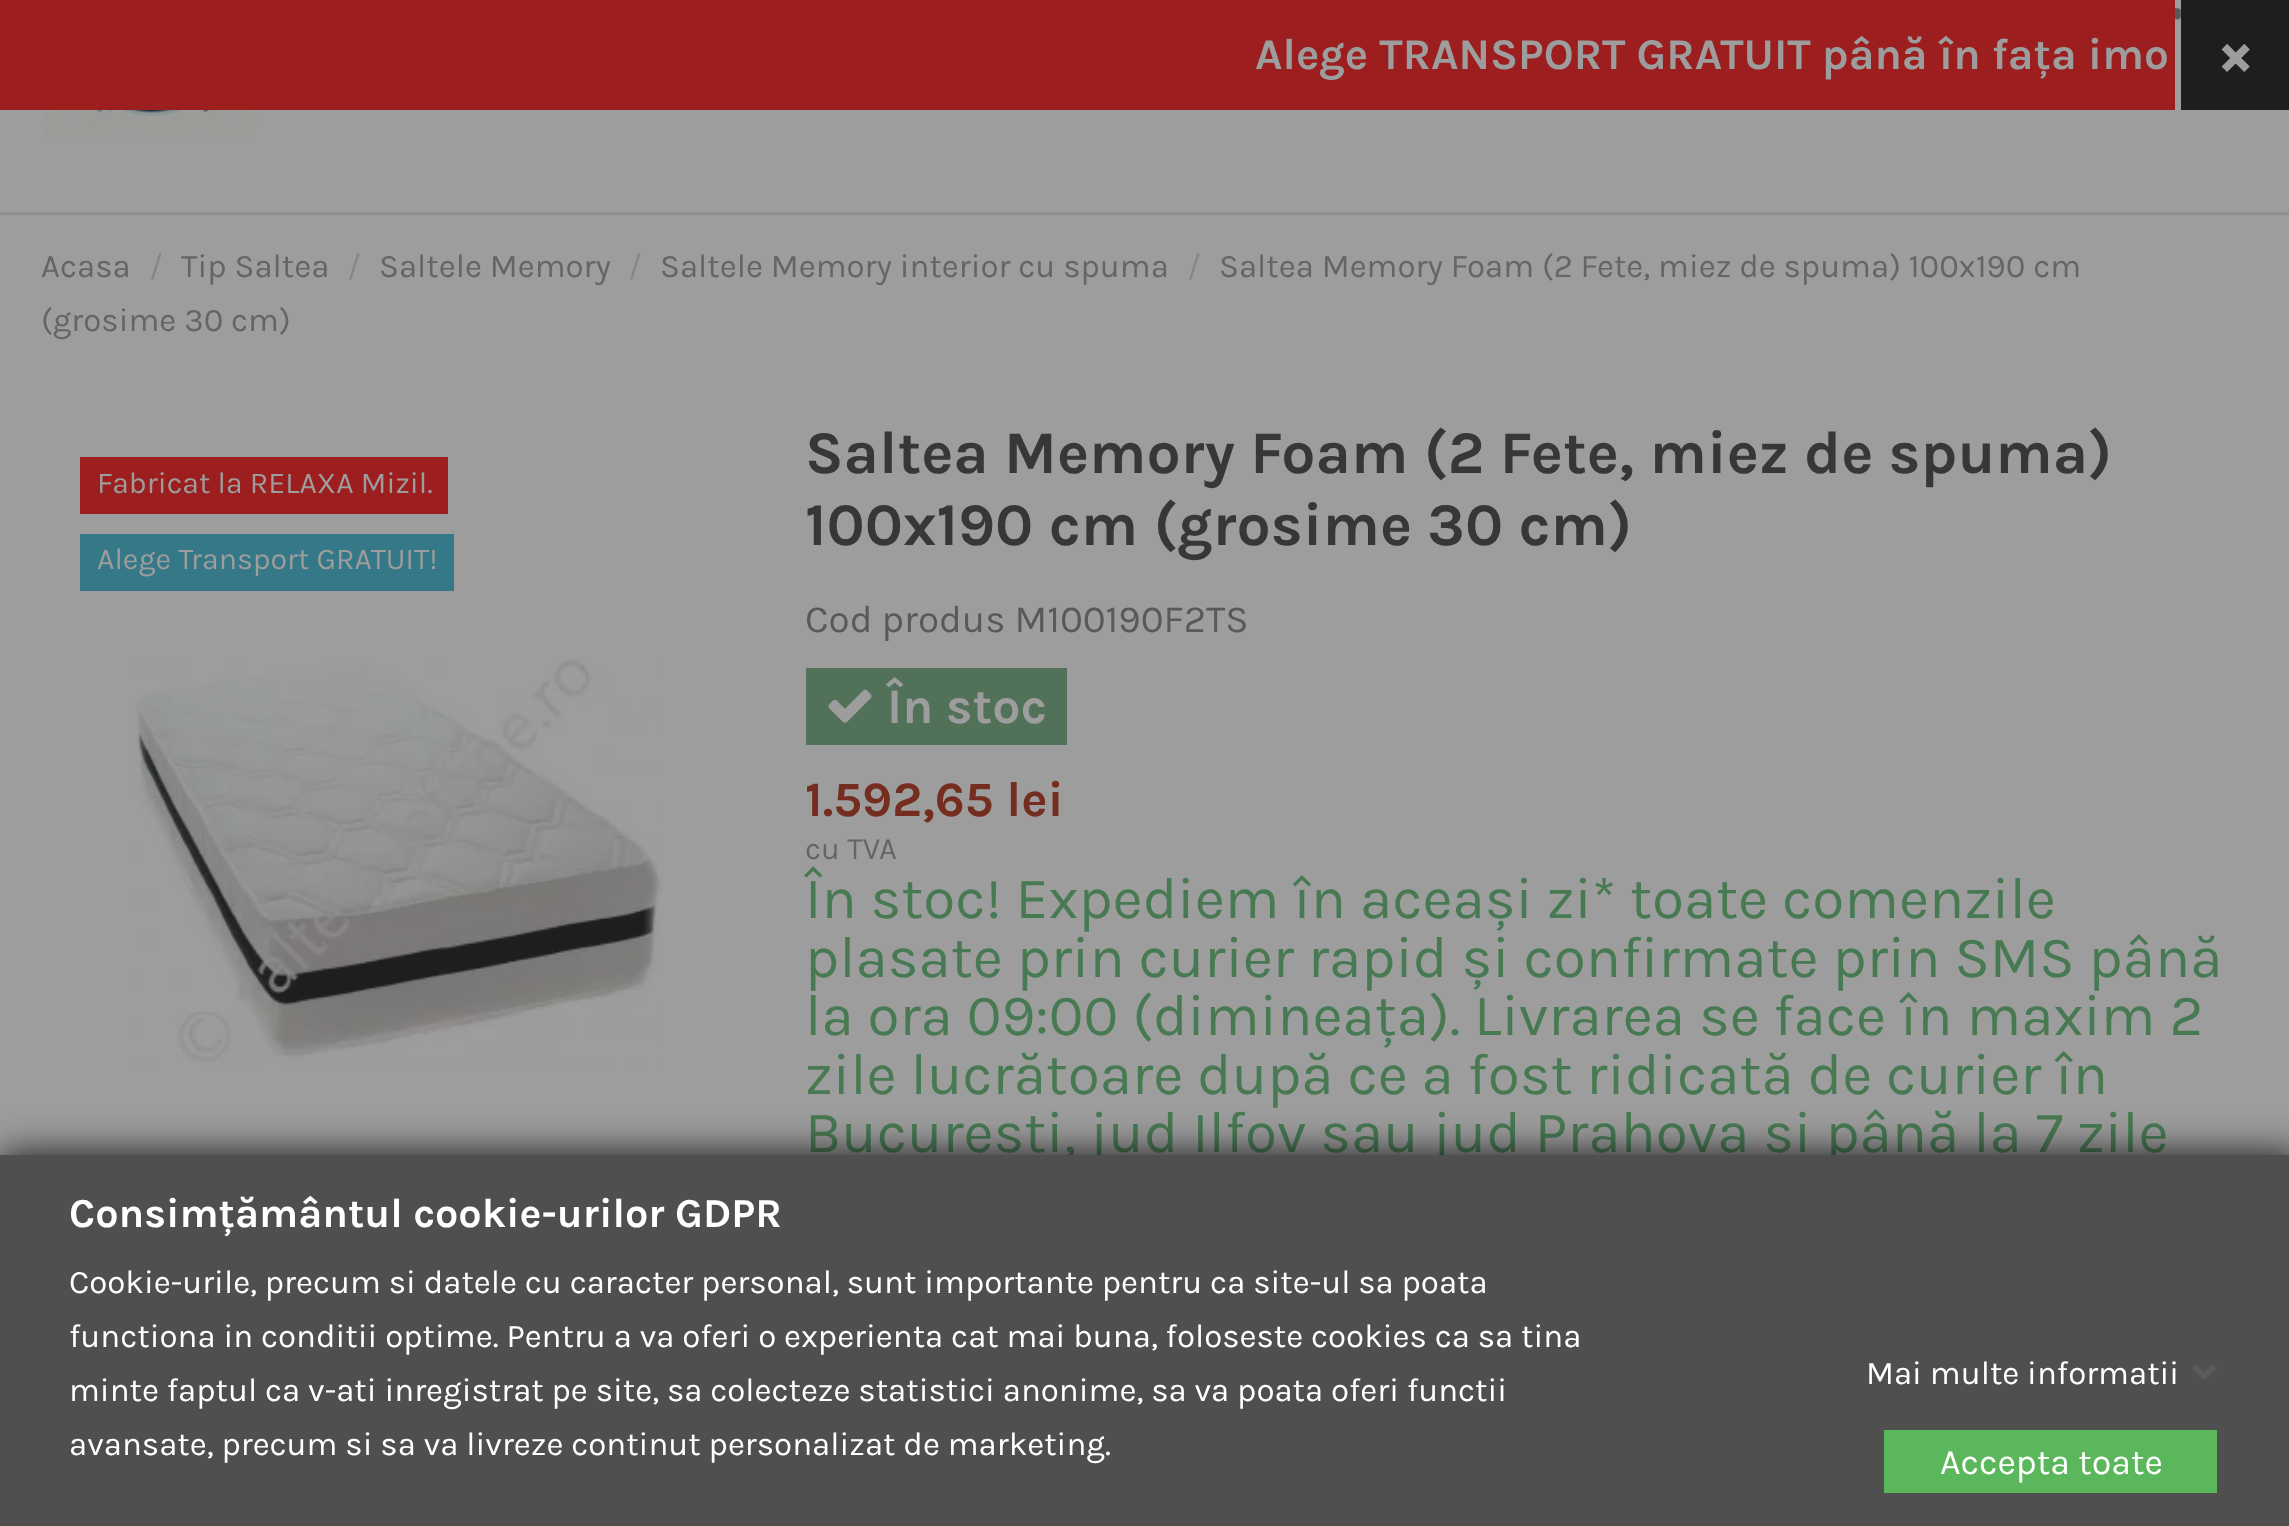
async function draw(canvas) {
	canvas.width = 2289;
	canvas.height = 1526;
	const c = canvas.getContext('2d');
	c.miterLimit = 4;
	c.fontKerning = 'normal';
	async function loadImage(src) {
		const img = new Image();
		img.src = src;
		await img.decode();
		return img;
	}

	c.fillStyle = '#9d9d9d';
	c.fillRect(0, 0, 2289, 1526);
	c.fillStyle = '#9d1e1e';
	c.fillRect(0, 0, 2175, 110);
	c.font = 'bold 44px Karla';
	c.fillStyle = '#9d9d9d';
	c.fillText('Alege TRANSPORT GRATUIT până în fața imo', 1255, 69);
	c.fillStyle = '#1e1e1e';
	c.fillRect(2181, 0, 108, 110);
	c.font = 'bold 66px Karla';
	c.fillStyle = '#9d9d9d';
	c.fillText('×', 2218, 75);
	c.fillStyle = '#8f8f8f';
	c.fillRect(0, 212, 2289, 3);
	c.drawImage(await loadImage('img1.png'), 2175, 8, 6, 12);
	c.drawImage(await loadImage('img2.png'), 44, 110, 941, 27);
	c.font = '33px Karla';
	c.fillStyle = '#656565';
	c.fillText('Acasa', 41, 277);
	c.fillStyle = '#878787';
	c.fillText('/', 149, 277);
	c.fillStyle = '#656565';
	c.fillText('Tip Saltea', 181, 277);
	c.fillStyle = '#878787';
	c.fillText('/', 347, 277);
	c.fillStyle = '#656565';
	c.fillText('Saltele Memory', 379, 277);
	c.fillStyle = '#878787';
	c.fillText('/', 628, 277);
	c.fillStyle = '#656565';
	c.fillText('Saltele Memory interior cu spuma', 660, 277);
	c.fillStyle = '#878787';
	c.fillText('/', 1187, 277);
	c.fillStyle = '#656565';
	c.fillText('Saltea Memory Foam (2 Fete, miez de spuma) 100x190 cm', 1219, 277);
	c.fillText('(grosime 30 cm)', 41, 331);
	c.fillStyle = '#9d1e1e';
	c.fillRect(80, 457, 368, 57);
	c.font = '30.25px Karla';
	c.fillStyle = '#9d9d9d';
	c.fillText('Fabricat la RELAXA Mizil.', 97, 493);
	c.fillStyle = '#357887';
	c.fillRect(80, 534, 374, 57);
	c.fillStyle = '#9d9d9d';
	c.fillText('Alege Transport GRATUIT!', 97, 569);
	c.drawImage(await loadImage('img3.png'), 135, 658, 528, 408);
	c.font = 'bold 60.5px Karla';
	c.fillStyle = '#373737';
	c.fillText('Saltea Memory Foam (2 Fete, miez de spuma)', 805, 473);
	c.fillText('100x190 cm (grosime 30 cm)', 805, 545);
	c.font = '38.5px Karla';
	c.fillStyle = '#595959';
	c.fillText('Cod produs M100190F2TS', 805, 632);
	c.fillStyle = '#517158';
	c.fillRect(806, 668, 261, 77);
	c.drawImage(await loadImage('img4.png'), 828, 689, 44, 34);
	c.font = 'bold 50px Karla';
	c.fillStyle = '#9d9d9d';
	c.fillText('În stoc', 887, 723);
	c.font = 'bold 49.5px Karla';
	c.fillStyle = '#742d1e';
	c.fillText('1.592,65 lei', 805, 816);
	c.font = '31px Karla';
	c.fillStyle = '#656565';
	c.fillText('cu TVA', 805, 859);
	c.font = '58.5px Karla';
	c.fillStyle = '#477a53';
	for (const [text, x, y] of [
		['În stoc! Expediem în aceași zi* toate comenzile', 805, 918],
		['plasate prin curier rapid și confirmate prin SMS până', 805, 977],
		['la ora 09:00 (dimineața). Livrarea se face în maxim 2', 805, 1035],
		['zile lucrătoare după ce a fost ridicată de curier în', 805, 1094],
		['București, jud Ilfov sau jud Prahova și până la 7 zile', 805, 1152],
	]) {
		c.fillText(text, x, y);
	}
	c.fillStyle = '#121212';
	c.filter = 'blur(19px)';
	c.beginPath();
	c.rect(0, 1155, 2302, 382);
	c.fill();
	c.filter = 'none';
	c.fillStyle = '#4f4f4f';
	c.fillRect(0, 1155, 2289, 371);
	c.font = 'bold 41.25px Karla';
	c.fillStyle = '#fff';
	c.fillText('Consimțământul cookie-urilor GDPR', 69, 1227);
	c.font = '33px Karla';
	for (const [text, x, y] of [
		['Cookie-urile, precum si datele cu caracter personal, sunt importante pentru ca site-ul sa poata', 69, 1293],
		['functiona in conditii optime. Pentru a va oferi o experienta cat mai buna, foloseste cookies ca sa tina', 69, 1347],
		['minte faptul ca v-ati inregistrat pe site, sa colecteze statistici anonime, sa va poata oferi functii', 69, 1401],
		['avansate, precum si sa va livreze continut personalizat de marketing.', 69, 1455],
		['Mai multe informatii', 1866, 1384],
	]) {
		c.fillText(text, x, y);
	}
	c.drawImage(await loadImage('img5.png'), 2192, 1364, 25, 17);
	c.fillStyle = '#5bb75b';
	c.fillRect(1884, 1430, 333, 63);
	c.font = '35.75px Karla';
	c.fillStyle = '#fff';
	c.fillText('Accepta toate', 1940, 1474);
}

draw(document.querySelector('canvas'));
